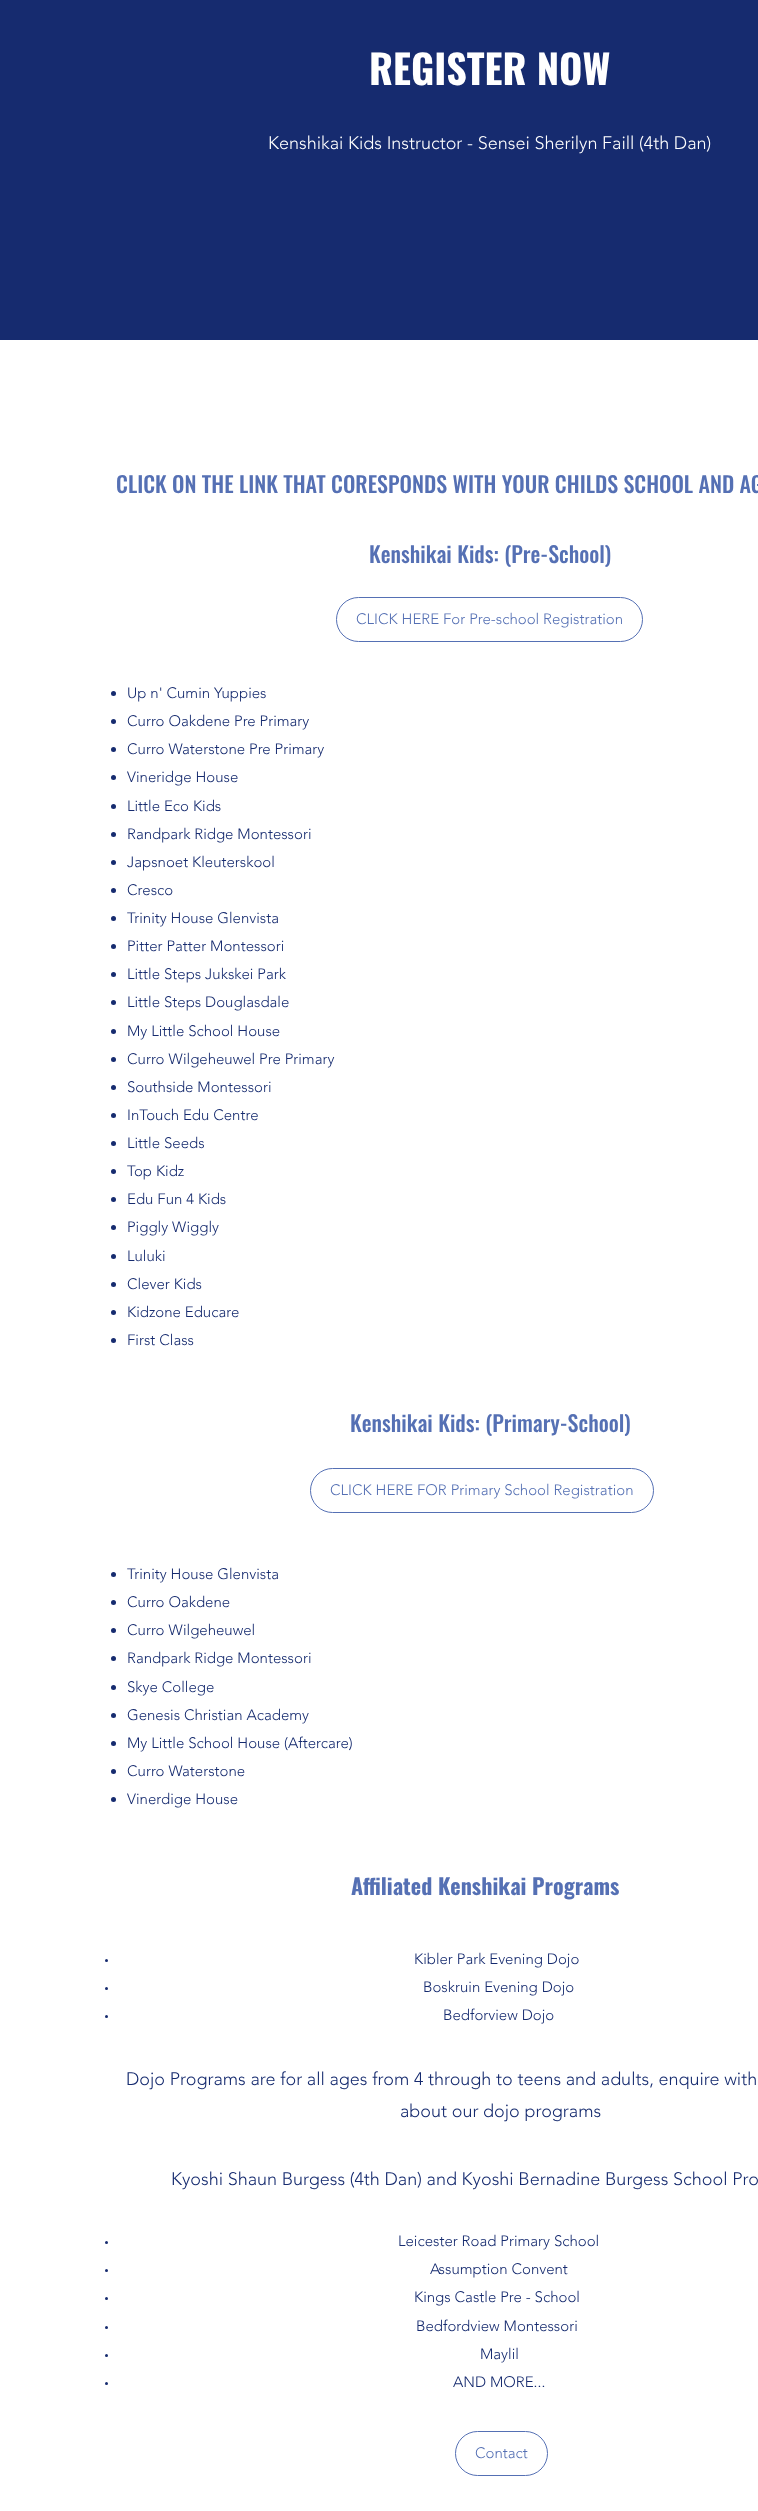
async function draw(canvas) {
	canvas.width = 758;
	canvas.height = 2511;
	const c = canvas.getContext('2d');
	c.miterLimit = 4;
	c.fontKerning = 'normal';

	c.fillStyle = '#fff';
	c.fillRect(0, 0, 758, 2511);
	c.fillStyle = '#162b6f';
	c.fillRect(0, 0, 758, 340);
	c.font = 'bold 40px Oswald';
	c.fillStyle = '#fff';
	c.fillText('REGISTER NOW', 369, 85);
	c.font = '300 18px "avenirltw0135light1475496"';
	c.fillText('Kenshikai Kids Instructor - Sensei Sherilyn Faill (4th Dan)', 268, 149);
	c.font = '500 22px Oswald';
	c.fillStyle = '#5570b4';
	c.fillText('CLICK ON THE LINK THAT CORESPONDS WITH YOUR CHILDS SCHOOL AND AG', 116, 493);
	c.fillText('Kenshikai Kids: (Pre-School)', 369, 563);
	c.beginPath();
	c.roundRect(336.5, 597.5, 306, 44, 22);
	c.strokeStyle = '#5570b4';
	c.stroke();
	c.font = '300 15px "avenirltw0135light1475496"';
	c.fillText('CLICK HERE For Pre-school Registration', 356, 624);
	c.fillStyle = '#162b6f';
	c.beginPath();
	c.arc(113.5, 693.5, 2.5, 0, 2 * Math.PI);
	c.fill();
	c.fillText('Up n\' Cumin Yuppies', 127, 698);
	c.beginPath();
	c.arc(113.5, 721.5, 2.5, 0, 2 * Math.PI);
	c.fill();
	c.fillText('Curro Oakdene Pre Primary', 127, 726);
	c.beginPath();
	c.arc(113.5, 749.5, 2.5, 0, 2 * Math.PI);
	c.fill();
	c.fillText('Curro Waterstone Pre Primary', 127, 754);
	c.beginPath();
	c.arc(113.5, 777.5, 2.5, 0, 2 * Math.PI);
	c.fill();
	c.fillText('Vineridge House', 127, 782);
	c.beginPath();
	c.arc(113.5, 806.5, 2.5, 0, 2 * Math.PI);
	c.fill();
	c.fillText('Little Eco Kids', 127, 811);
	c.beginPath();
	c.arc(113.5, 834.5, 2.5, 0, 2 * Math.PI);
	c.fill();
	c.fillText('Randpark Ridge Montessori', 127, 839);
	c.beginPath();
	c.arc(113.5, 862.5, 2.5, 0, 2 * Math.PI);
	c.fill();
	c.fillText('Japsnoet Kleuterskool', 127, 867);
	c.beginPath();
	c.arc(113.5, 890.5, 2.5, 0, 2 * Math.PI);
	c.fill();
	c.fillText('Cresco', 127, 895);
	c.beginPath();
	c.arc(113.5, 918.5, 2.5, 0, 2 * Math.PI);
	c.fill();
	c.fillText('Trinity House Glenvista', 127, 923);
	c.beginPath();
	c.arc(113.5, 946.5, 2.5, 0, 2 * Math.PI);
	c.fill();
	c.fillText('Pitter Patter Montessori', 127, 951);
	c.beginPath();
	c.arc(113.5, 974.5, 2.5, 0, 2 * Math.PI);
	c.fill();
	c.fillText('Little Steps Jukskei Park', 127, 979);
	c.beginPath();
	c.arc(113.5, 1002.5, 2.5, 0, 2 * Math.PI);
	c.fill();
	c.fillText('Little Steps Douglasdale', 127, 1007);
	c.beginPath();
	c.arc(113.5, 1031.5, 2.5, 0, 2 * Math.PI);
	c.fill();
	c.fillText('My Little School House', 127, 1036);
	c.beginPath();
	c.arc(113.5, 1059.5, 2.5, 0, 2 * Math.PI);
	c.fill();
	c.fillText('Curro Wilgeheuwel Pre Primary', 127, 1064);
	c.beginPath();
	c.arc(113.5, 1087.5, 2.5, 0, 2 * Math.PI);
	c.fill();
	c.fillText('Southside Montessori', 127, 1092);
	c.beginPath();
	c.arc(113.5, 1115.5, 2.5, 0, 2 * Math.PI);
	c.fill();
	c.fillText('InTouch Edu Centre', 127, 1120);
	c.beginPath();
	c.arc(113.5, 1143.5, 2.5, 0, 2 * Math.PI);
	c.fill();
	c.fillText('Little Seeds', 127, 1148);
	c.beginPath();
	c.arc(113.5, 1171.5, 2.5, 0, 2 * Math.PI);
	c.fill();
	c.fillText('Top Kidz', 127, 1176);
	c.beginPath();
	c.arc(113.5, 1199.5, 2.5, 0, 2 * Math.PI);
	c.fill();
	c.fillText('Edu Fun 4 Kids', 127, 1204);
	c.beginPath();
	c.arc(113.5, 1227.5, 2.5, 0, 2 * Math.PI);
	c.fill();
	c.fillText('Piggly Wiggly', 127, 1232);
	c.beginPath();
	c.arc(113.5, 1256.5, 2.5, 0, 2 * Math.PI);
	c.fill();
	c.fillText('Luluki', 127, 1261);
	c.beginPath();
	c.arc(113.5, 1284.5, 2.5, 0, 2 * Math.PI);
	c.fill();
	c.fillText('Clever Kids', 127, 1289);
	c.beginPath();
	c.arc(113.5, 1312.5, 2.5, 0, 2 * Math.PI);
	c.fill();
	c.fillText('Kidzone Educare', 127, 1317);
	c.beginPath();
	c.arc(113.5, 1340.5, 2.5, 0, 2 * Math.PI);
	c.fill();
	c.fillText('First Class', 127, 1345);
	c.font = '500 22px Oswald';
	c.fillStyle = '#5570b4';
	c.fillText('Kenshikai Kids: (Primary-School)', 350, 1432);
	c.beginPath();
	c.roundRect(310.5, 1468.5, 343, 44, 22);
	c.stroke();
	c.font = '300 15px "avenirltw0135light1475496"';
	c.fillText('CLICK HERE FOR Primary School Registration', 330, 1495);
	c.fillStyle = '#162b6f';
	c.beginPath();
	c.arc(113.5, 1574.5, 2.5, 0, 2 * Math.PI);
	c.fill();
	c.fillText('Trinity House Glenvista', 127, 1579);
	c.beginPath();
	c.arc(113.5, 1602.5, 2.5, 0, 2 * Math.PI);
	c.fill();
	c.fillText('Curro Oakdene', 127, 1607);
	c.beginPath();
	c.arc(113.5, 1630.5, 2.5, 0, 2 * Math.PI);
	c.fill();
	c.fillText('Curro Wilgeheuwel', 127, 1635);
	c.beginPath();
	c.arc(113.5, 1658.5, 2.5, 0, 2 * Math.PI);
	c.fill();
	c.fillText('Randpark Ridge Montessori', 127, 1663);
	c.beginPath();
	c.arc(113.5, 1687.5, 2.5, 0, 2 * Math.PI);
	c.fill();
	c.fillText('Skye College', 127, 1692);
	c.beginPath();
	c.arc(113.5, 1715.5, 2.5, 0, 2 * Math.PI);
	c.fill();
	c.fillText('Genesis Christian Academy', 127, 1720);
	c.beginPath();
	c.arc(113.5, 1743.5, 2.5, 0, 2 * Math.PI);
	c.fill();
	c.fillText('My Little School House (Aftercare)', 127, 1748);
	c.beginPath();
	c.arc(113.5, 1771.5, 2.5, 0, 2 * Math.PI);
	c.fill();
	c.fillText('Curro Waterstone', 127, 1776);
	c.beginPath();
	c.arc(113.5, 1799.5, 2.5, 0, 2 * Math.PI);
	c.fill();
	c.fillText('Vinerdige House', 127, 1804);
	c.font = 'bold 22px Oswald';
	c.fillStyle = '#5570b4';
	c.fillText('Affiliated Kenshikai Programs', 351, 1895);
	c.fillStyle = '#162b6f';
	c.beginPath();
	c.arc(106.5, 1960.5, 1.5, 0, 2 * Math.PI);
	c.fill();
	c.font = '300 15px "avenirltw0135light1475496"';
	c.fillText('Kibler Park Evening Dojo', 414, 1964);
	c.beginPath();
	c.arc(106.5, 1988.5, 1.5, 0, 2 * Math.PI);
	c.fill();
	c.fillText('Boskruin Evening Dojo', 423, 1992);
	c.beginPath();
	c.arc(106.5, 2016.5, 1.5, 0, 2 * Math.PI);
	c.fill();
	c.fillText('Bedforview Dojo', 443, 2020);
	c.font = '300 18px "avenirltw0135light1475496"';
	for (const [text, x, y] of [
		['Dojo Programs are for all ages from 4 through to teens and adults, enquire with', 126, 2085],
		['about our dojo programs', 400, 2117],
		['Kyoshi Shaun Burgess (4th Dan) and Kyoshi Bernadine Burgess School Pro', 171, 2185],
	]) {
		c.fillText(text, x, y);
	}
	c.beginPath();
	c.arc(106.5, 2242.5, 1.5, 0, 2 * Math.PI);
	c.fill();
	c.font = '300 15px "avenirltw0135light1475496"';
	c.fillText('Leicester Road Primary School', 398, 2246);
	c.beginPath();
	c.arc(106.5, 2270.5, 1.5, 0, 2 * Math.PI);
	c.fill();
	c.fillText('Assumption Convent', 430, 2274);
	c.beginPath();
	c.arc(106.5, 2298.5, 1.5, 0, 2 * Math.PI);
	c.fill();
	c.fillText('Kings Castle Pre - School', 414, 2302);
	c.beginPath();
	c.arc(106.5, 2327.5, 1.5, 0, 2 * Math.PI);
	c.fill();
	c.fillText('Bedfordview Montessori', 416, 2331);
	c.beginPath();
	c.arc(106.5, 2355.5, 1.5, 0, 2 * Math.PI);
	c.fill();
	c.fillText('Maylil', 480, 2359);
	c.beginPath();
	c.arc(106.5, 2383.5, 1.5, 0, 2 * Math.PI);
	c.fill();
	c.fillText('AND MORE...', 453, 2387);
	c.beginPath();
	c.roundRect(455.5, 2431.5, 92, 44, 22);
	c.stroke();
	c.fillStyle = '#5570b4';
	c.fillText('Contact', 475, 2458);
}

draw(document.querySelector('canvas'));
